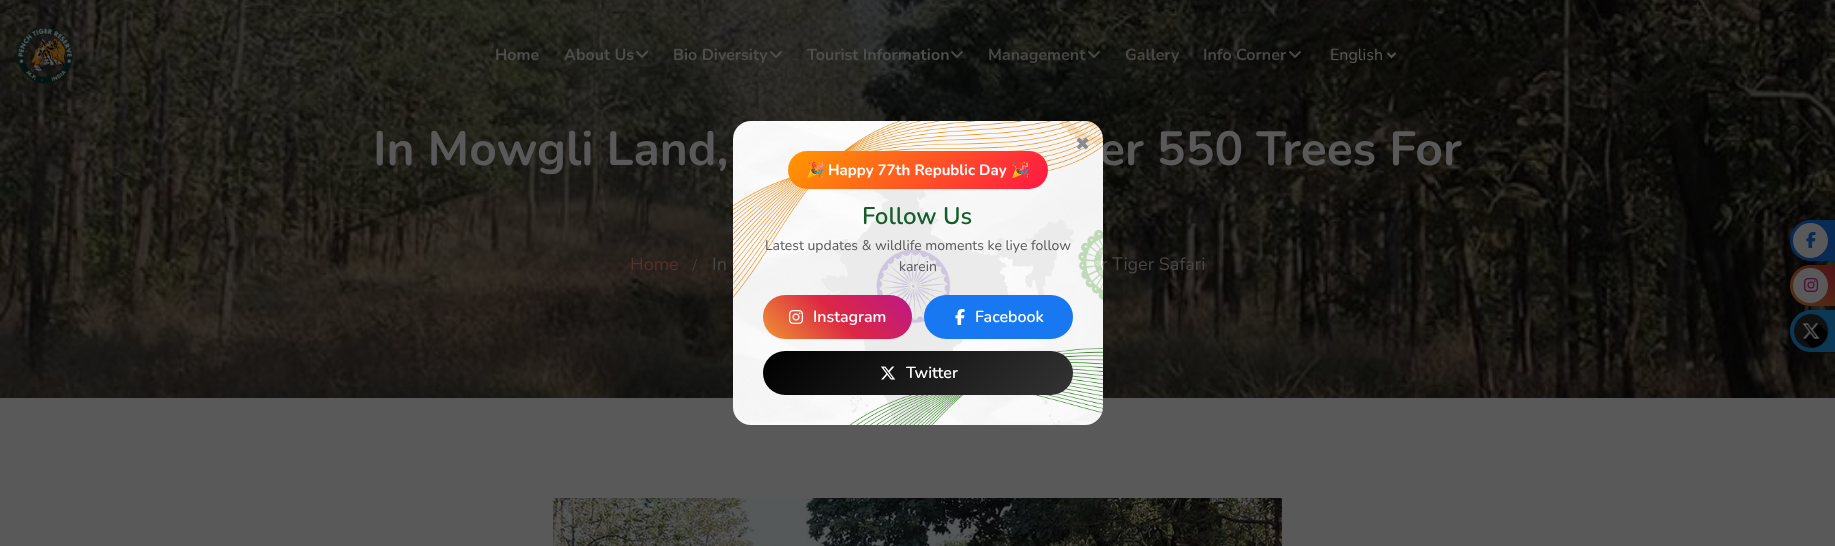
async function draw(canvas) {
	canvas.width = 1835;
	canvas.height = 546;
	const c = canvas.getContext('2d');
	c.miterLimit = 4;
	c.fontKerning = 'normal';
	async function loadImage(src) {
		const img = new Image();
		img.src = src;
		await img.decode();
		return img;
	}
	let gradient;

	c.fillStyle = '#595959';
	c.fillRect(0, 0, 1835, 546);
	c.drawImage(await loadImage('img7.png'), 0, 0, 1835, 398);
	c.drawImage(await loadImage('img1.png'), 17, 27, 56, 57);
	c.font = 'bold 16px Nunito';
	c.fillStyle = '#4d4d4c';
	c.fillText('Home', 495, 60);
	c.fillText('About Us', 564, 60);
	c.drawImage(await loadImage('img2.png'), 636, 51, 12, 7);
	c.fillText('Bio Diversity', 673, 60);
	c.drawImage(await loadImage('img3.png'), 770, 51, 12, 7);
	c.fillText('Tourist Information', 807, 60);
	c.drawImage(await loadImage('img4.png'), 951, 51, 12, 7);
	c.fillStyle = '#484746';
	c.fillText('Management', 988, 60);
	c.drawImage(await loadImage('img5.png'), 1088, 51, 12, 7);
	c.fillText('Gallery', 1125, 60);
	c.fillText('Info Corner', 1203, 60);
	c.drawImage(await loadImage('img6.png'), 1289, 51, 12, 7);
	c.beginPath();
	c.moveTo(1387.5, 53);
	c.lineTo(1391.5, 57);
	c.lineTo(1395.5, 53);
	c.strokeStyle = '#545454';
	c.lineWidth = 2;
	c.stroke();
	c.font = '16px Nunito';
	c.fillStyle = '#595959';
	c.fillText('English', 1330, 60);
	c.font = 'bold 48px Nunito';
	c.fillText('In Mowgli Land,', 373, 165);
	c.fillText('er 550 Trees For', 1099, 165);
	c.font = '18px Nunito';
	c.fillStyle = '#593028';
	c.fillText('Home', 630, 270);
	c.font = '18px Liberation Serif';
	c.fillStyle = '#484746';
	c.fillText('/', 692, 271);
	c.font = '18px Nunito';
	c.fillText('In', 712, 270);
	c.fillText('r Tiger Safari', 1101, 270);
	c.drawImage(await loadImage('img8.png'), 733, 121, 370, 304);
	c.font = '18px DejaVu Sans';
	c.fillStyle = '#878a95';
	c.fillText('✖', 1075, 150);
	gradient = c.createLinearGradient(844, 96, 993, 245);
	gradient.addColorStop(0, '#ff9800');
	gradient.addColorStop(1, '#ff1744');
	c.fillStyle = gradient;
	c.beginPath();
	c.roundRect(788, 151, 260, 38, 19);
	c.fill();
	c.font = 'bold 15px Noto Color Emoji';
	c.fillStyle = '#fff';
	c.fillText('🎉', 806, 175);
	c.font = 'bold 15px Nunito';
	c.fillText('Happy 77th Republic Day', 828, 175);
	c.font = 'bold 15px Noto Color Emoji';
	c.fillText('🎉', 1011, 175);
	c.font = '600 24px Nunito';
	c.fillStyle = '#135e2a';
	c.fillText('Follow Us', 862, 224);
	c.font = '14px Nunito';
	c.fillStyle = '#595959';
	c.fillText('Latest updates & wildlife moments ke liye follow', 765, 250);
	c.fillText('karein', 899, 271);
	gradient = c.createLinearGradient(789, 365, 886, 269);
	gradient.addColorStop(0, '#f09433');
	gradient.addColorStop(0.5, '#dc2743');
	gradient.addColorStop(1, '#bc1888');
	c.fillStyle = gradient;
	c.beginPath();
	c.roundRect(763, 295, 149, 44, 22);
	c.fill();
	c.drawImage(await loadImage('img9.png'), 789, 310, 14, 14);
	c.font = '600 16px Nunito';
	c.fillStyle = '#fff';
	c.fillText('Instagram', 813, 322);
	c.fillStyle = '#1778f2';
	c.beginPath();
	c.roundRect(924, 295, 149, 44, 22);
	c.fill();
	c.drawImage(await loadImage('img10.png'), 955, 309, 10, 16);
	c.fillStyle = '#fff';
	c.fillText('Facebook', 975, 322);
	gradient = c.createLinearGradient(830, 285, 1007, 462);
	gradient.addColorStop(0, '#000');
	gradient.addColorStop(1, '#333');
	c.fillStyle = gradient;
	c.beginPath();
	c.roundRect(763, 351, 310, 44, 22);
	c.fill();
	c.drawImage(await loadImage('img11.png'), 881, 366, 15, 14);
	c.fillStyle = '#fff';
	c.fillText('Twitter', 906, 378);
	c.fillStyle = '#082a55';
	c.beginPath();
	c.moveTo(1810.5, 220);
	c.lineTo(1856, 220);
	c.lineTo(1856, 261);
	c.lineTo(1810.5, 261);
	c.bezierCurveTo(1799, 261, 1790, 252, 1790, 240.5);
	c.bezierCurveTo(1790, 229, 1799, 220, 1810.5, 220);
	c.closePath();
	c.fill();
	c.fillStyle = '#595959';
	c.beginPath();
	c.arc(1810.5, 240.5, 17.5, 0, 2 * Math.PI);
	c.fill();
	c.drawImage(await loadImage('img12.png'), 1806, 232, 10, 16);
	gradient = c.createLinearGradient(1816, 332, 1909, 239);
	gradient.addColorStop(0, '#543412');
	gradient.addColorStop(0.25, '#512415');
	gradient.addColorStop(0.5, '#4d0e17');
	gradient.addColorStop(0.75, '#470c24');
	gradient.addColorStop(1, '#420830');
	c.fillStyle = gradient;
	c.beginPath();
	c.moveTo(1810.5, 265);
	c.lineTo(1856, 265);
	c.lineTo(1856, 306);
	c.lineTo(1810.5, 306);
	c.bezierCurveTo(1799, 306, 1790, 297, 1790, 285.5);
	c.bezierCurveTo(1790, 274, 1799, 265, 1810.5, 265);
	c.closePath();
	c.fill();
	c.fillStyle = '#595959';
	c.beginPath();
	c.arc(1810.5, 285.5, 17.5, 0, 2 * Math.PI);
	c.fill();
	c.drawImage(await loadImage('img13.png'), 1804, 278, 14, 14);
	c.fillStyle = '#0a3855';
	c.beginPath();
	c.moveTo(1811, 310);
	c.lineTo(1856, 310);
	c.lineTo(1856, 352);
	c.lineTo(1811, 352);
	c.bezierCurveTo(1799.5, 352, 1790, 342.5, 1790, 331);
	c.bezierCurveTo(1790, 319.5, 1799.5, 310, 1811, 310);
	c.closePath();
	c.fill();
	c.drawImage(await loadImage('img14.png'), 1793, 313, 36, 36);
	c.drawImage(await loadImage('img15.png'), 553, 498, 729, 48);
}

draw(document.querySelector('canvas'));
